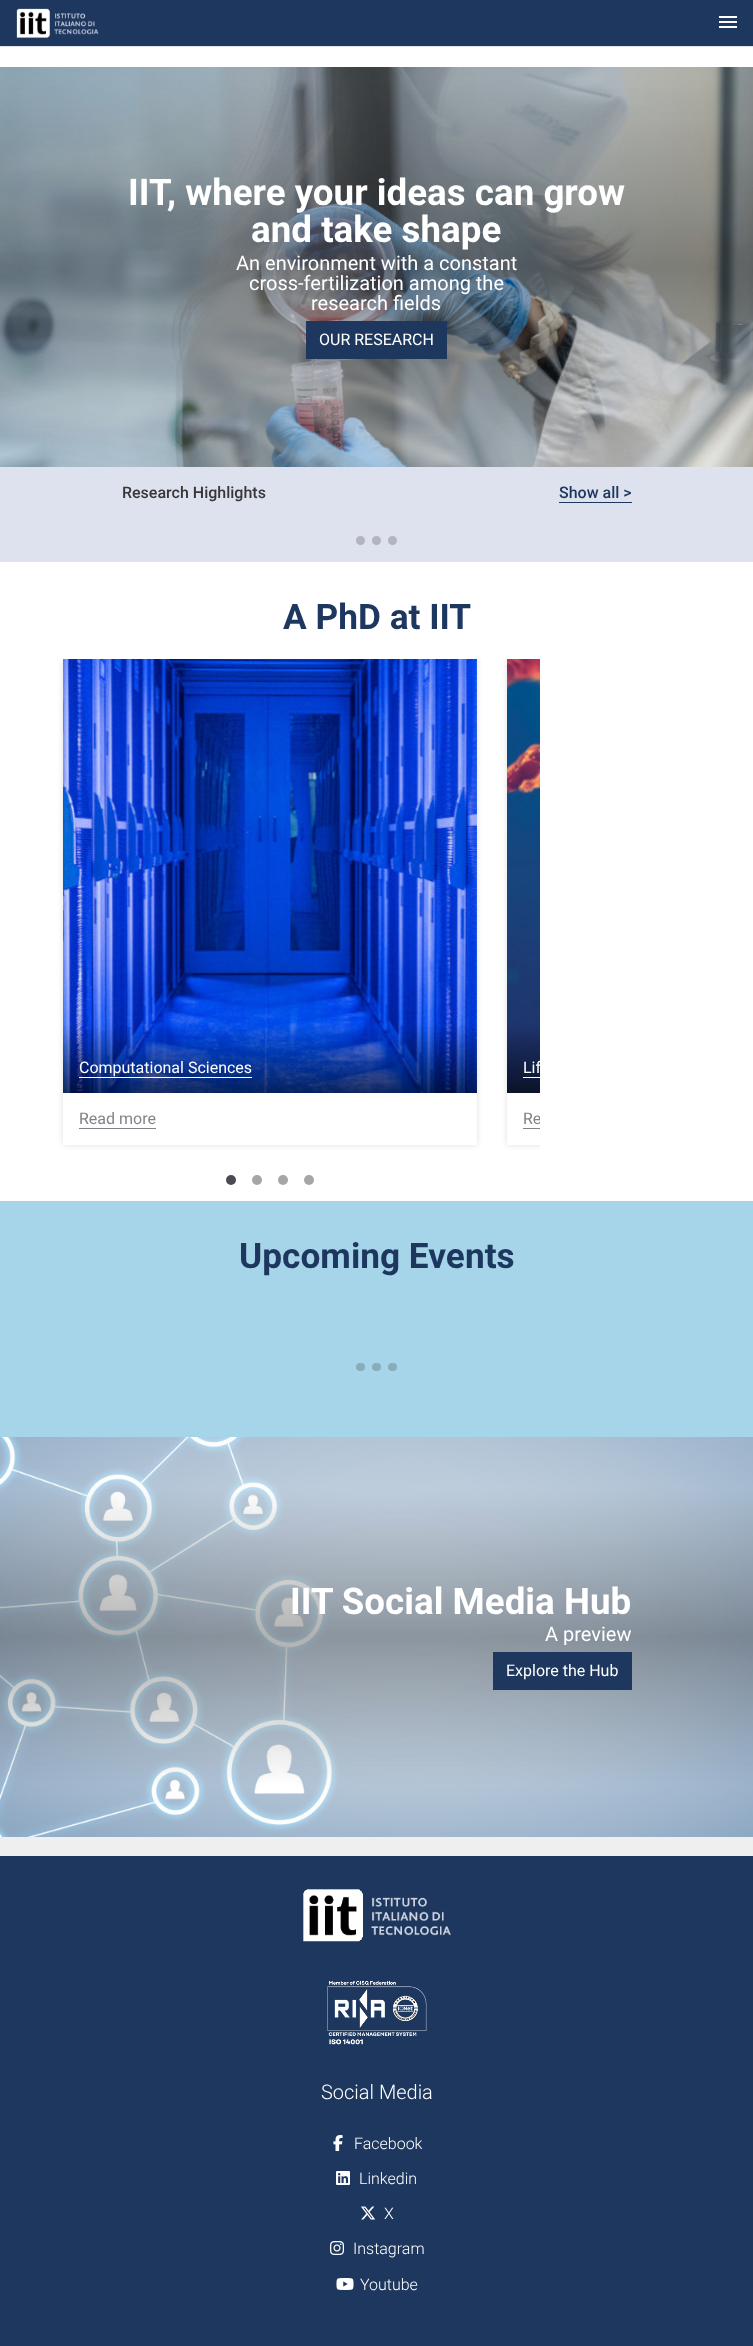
async function draw(canvas) {
	canvas.width = 753;
	canvas.height = 2346;
	const c = canvas.getContext('2d');
	c.miterLimit = 4;
	c.fontKerning = 'normal';
	async function loadImage(src) {
		const img = new Image();
		img.src = src;
		await img.decode();
		return img;
	}
	let gradient;

	c.fillStyle = '#fff';
	c.fillRect(0, 0, 753, 2346);
	c.fillStyle = '#1d375f';
	c.fillRect(0, 0, 753, 46);
	c.fillStyle = '#dee2ef';
	c.fillRect(0, 46, 753, 1);
	c.drawImage(await loadImage('img1.png'), 16, 8, 83, 30);
	c.drawImage(await loadImage('img2.png'), 719, 16, 18, 12);
	c.drawImage(await loadImage('img3.png'), 0, 67, 753, 400);
	c.font = 'bold 36.75px Roboto';
	c.fillStyle = '#fff';
	c.fillText('IIT, where your ideas can grow', 128, 205);
	c.fillText('and take shape', 251, 242);
	c.font = '20px Roboto';
	for (const [text, x, y] of [
		['An environment with a constant', 236, 270],
		['cross-fertilization among the', 249, 290],
		['research fields', 311, 310],
	]) {
		c.fillText(text, x, y);
	}
	c.fillStyle = '#1d375f';
	c.fillRect(306, 321, 141, 38);
	c.font = '16px Roboto';
	c.fillStyle = '#fff';
	c.fillText('OUR RESEARCH', 319, 345);
	c.fillStyle = '#dee2ef';
	c.fillRect(0, 467, 753, 95);
	c.font = '500 16px Roboto';
	c.fillStyle = '#383737';
	c.fillText('Research Highlights', 122, 498);
	c.fillStyle = '#1d375f';
	c.fillText('Show all >', 559, 498);
	c.fillRect(559, 502, 73, 1);
	c.fillStyle = '#b2b5c0';
	c.beginPath();
	c.arc(360.5, 540.5, 4.5, 0, 2 * Math.PI);
	c.fill();
	c.beginPath();
	c.arc(376.5, 540.5, 4.5, 0, 2 * Math.PI);
	c.fill();
	c.beginPath();
	c.arc(392.5, 540.5, 4.5, 0, 2 * Math.PI);
	c.fill();
	c.font = 'bold 35.25px Roboto';
	c.fillStyle = '#1d375f';
	c.fillText('A PhD at IIT', 283, 629);
	c.save();
	c.beginPath();
	c.rect(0, 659, 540, 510);
	c.clip();
	c.beginPath();
	c.moveTo(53, 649);
	c.lineTo(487, 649);
	c.lineTo(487, 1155);
	c.lineTo(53, 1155);
	c.closePath();
	c.moveTo(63, 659);
	c.lineTo(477, 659);
	c.lineTo(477, 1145);
	c.lineTo(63, 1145);
	c.closePath();
	c.clip('evenodd');
	c.fillStyle = '#0000001f';
	c.filter = 'blur(3px)';
	c.beginPath();
	c.rect(63, 659, 414, 486);
	c.fill();
	c.filter = 'none';
	c.restore();
	c.drawImage(await loadImage('img4.png'), 63, 659, 414, 434);
	gradient = c.createLinearGradient(270, 1023, 270, 1093);
	gradient.addColorStop(0, '#00000000');
	gradient.addColorStop(1, '#00000099');
	c.fillStyle = gradient;
	c.fillRect(63, 1026, 414, 67);
	c.font = '16px Roboto';
	c.fillStyle = '#fff';
	c.fillText('Computational Sciences', 79, 1073);
	c.fillRect(79, 1077, 173, 1);
	c.fillStyle = '#808287';
	c.fillText('Read more', 79, 1124);
	c.fillRect(79, 1128, 77, 1);
	c.save();
	c.beginPath();
	c.rect(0, 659, 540, 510);
	c.clip();
	c.beginPath();
	c.moveTo(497, 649);
	c.lineTo(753, 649);
	c.lineTo(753, 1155);
	c.lineTo(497, 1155);
	c.closePath();
	c.moveTo(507, 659);
	c.lineTo(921, 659);
	c.lineTo(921, 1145);
	c.lineTo(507, 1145);
	c.closePath();
	c.clip('evenodd');
	c.fillStyle = '#0000001f';
	c.filter = 'blur(3px)';
	c.beginPath();
	c.rect(507, 659, 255, 486);
	c.fill();
	c.filter = 'none';
	c.restore();
	c.drawImage(await loadImage('img5.png'), 507, 659, 33, 434);
	c.save();
	c.beginPath();
	c.rect(507, 659, 33, 434);
	c.clip();
	c.fillStyle = '#fff';
	c.fillText('Lif', 523, 1073);
	c.restore();
	c.fillStyle = '#fff';
	c.fillRect(523, 1077, 17, 1);
	c.save();
	c.beginPath();
	c.rect(507, 659, 33, 486);
	c.clip();
	c.fillStyle = '#808287';
	c.fillText('Re', 523, 1124);
	c.restore();
	c.fillStyle = '#808287';
	c.fillRect(523, 1128, 17, 1);
	c.fillStyle = '#4a4c53';
	c.beginPath();
	c.arc(231, 1180, 5, 0, 2 * Math.PI);
	c.fill();
	c.fillStyle = '#a5a6a9';
	c.beginPath();
	c.arc(257, 1180, 5, 0, 2 * Math.PI);
	c.fill();
	c.beginPath();
	c.arc(283, 1180, 5, 0, 2 * Math.PI);
	c.fill();
	c.beginPath();
	c.arc(309, 1180, 5, 0, 2 * Math.PI);
	c.fill();
	c.fillStyle = '#a6d4e8';
	c.fillRect(0, 1201, 753, 236);
	c.font = 'bold 35.25px Roboto';
	c.fillStyle = '#1d375f';
	c.fillText('Upcoming Events', 239, 1268);
	c.fillStyle = '#8aabbb';
	c.beginPath();
	c.roundRect(356, 1363, 9, 8, 4);
	c.fill();
	c.beginPath();
	c.roundRect(372, 1363, 9, 8, 4);
	c.fill();
	c.beginPath();
	c.roundRect(388, 1363, 9, 8, 4);
	c.fill();
	c.drawImage(await loadImage('img6.png'), 0, 1437, 753, 400);
	c.font = 'bold 36.75px Roboto';
	c.fillStyle = '#fff';
	c.fillText('IIT Social Media Hub', 290, 1614);
	c.font = '20px Roboto';
	c.fillText('A preview', 545, 1641);
	c.fillStyle = '#1d375f';
	c.fillRect(493, 1652, 139, 38);
	c.font = '16px Roboto';
	c.fillStyle = '#fff';
	c.fillText('Explore the Hub', 506, 1676);
	c.fillStyle = '#efefef';
	c.fillRect(0, 1837, 753, 19);
	c.fillStyle = '#1d375f';
	c.fillRect(0, 1856, 753, 490);
	c.drawImage(await loadImage('img7.png'), 303, 1889, 148, 53);
	c.drawImage(await loadImage('img8.png'), 327, 1980, 100, 65);
	c.font = '300 20px Roboto';
	c.fillStyle = '#fff';
	c.fillText('Social Media', 321, 2099);
	c.drawImage(await loadImage('img9.png'), 333, 2135, 10, 16);
	c.font = '300 16px Roboto';
	c.fillText('Facebook', 354, 2149);
	c.drawImage(await loadImage('img10.png'), 336, 2171, 14, 14);
	c.fillText('Linkedin', 359, 2184);
	c.drawImage(await loadImage('img11.png'), 361, 2206, 15, 14);
	c.fillText('X', 384, 2219);
	c.drawImage(await loadImage('img12.png'), 330, 2241, 14, 14);
	c.fillText('Instagram', 353, 2254);
	c.drawImage(await loadImage('img13.png'), 336, 2278, 18, 12);
	c.fillText('Youtube', 360, 2290);
}

draw(document.querySelector('canvas'));
